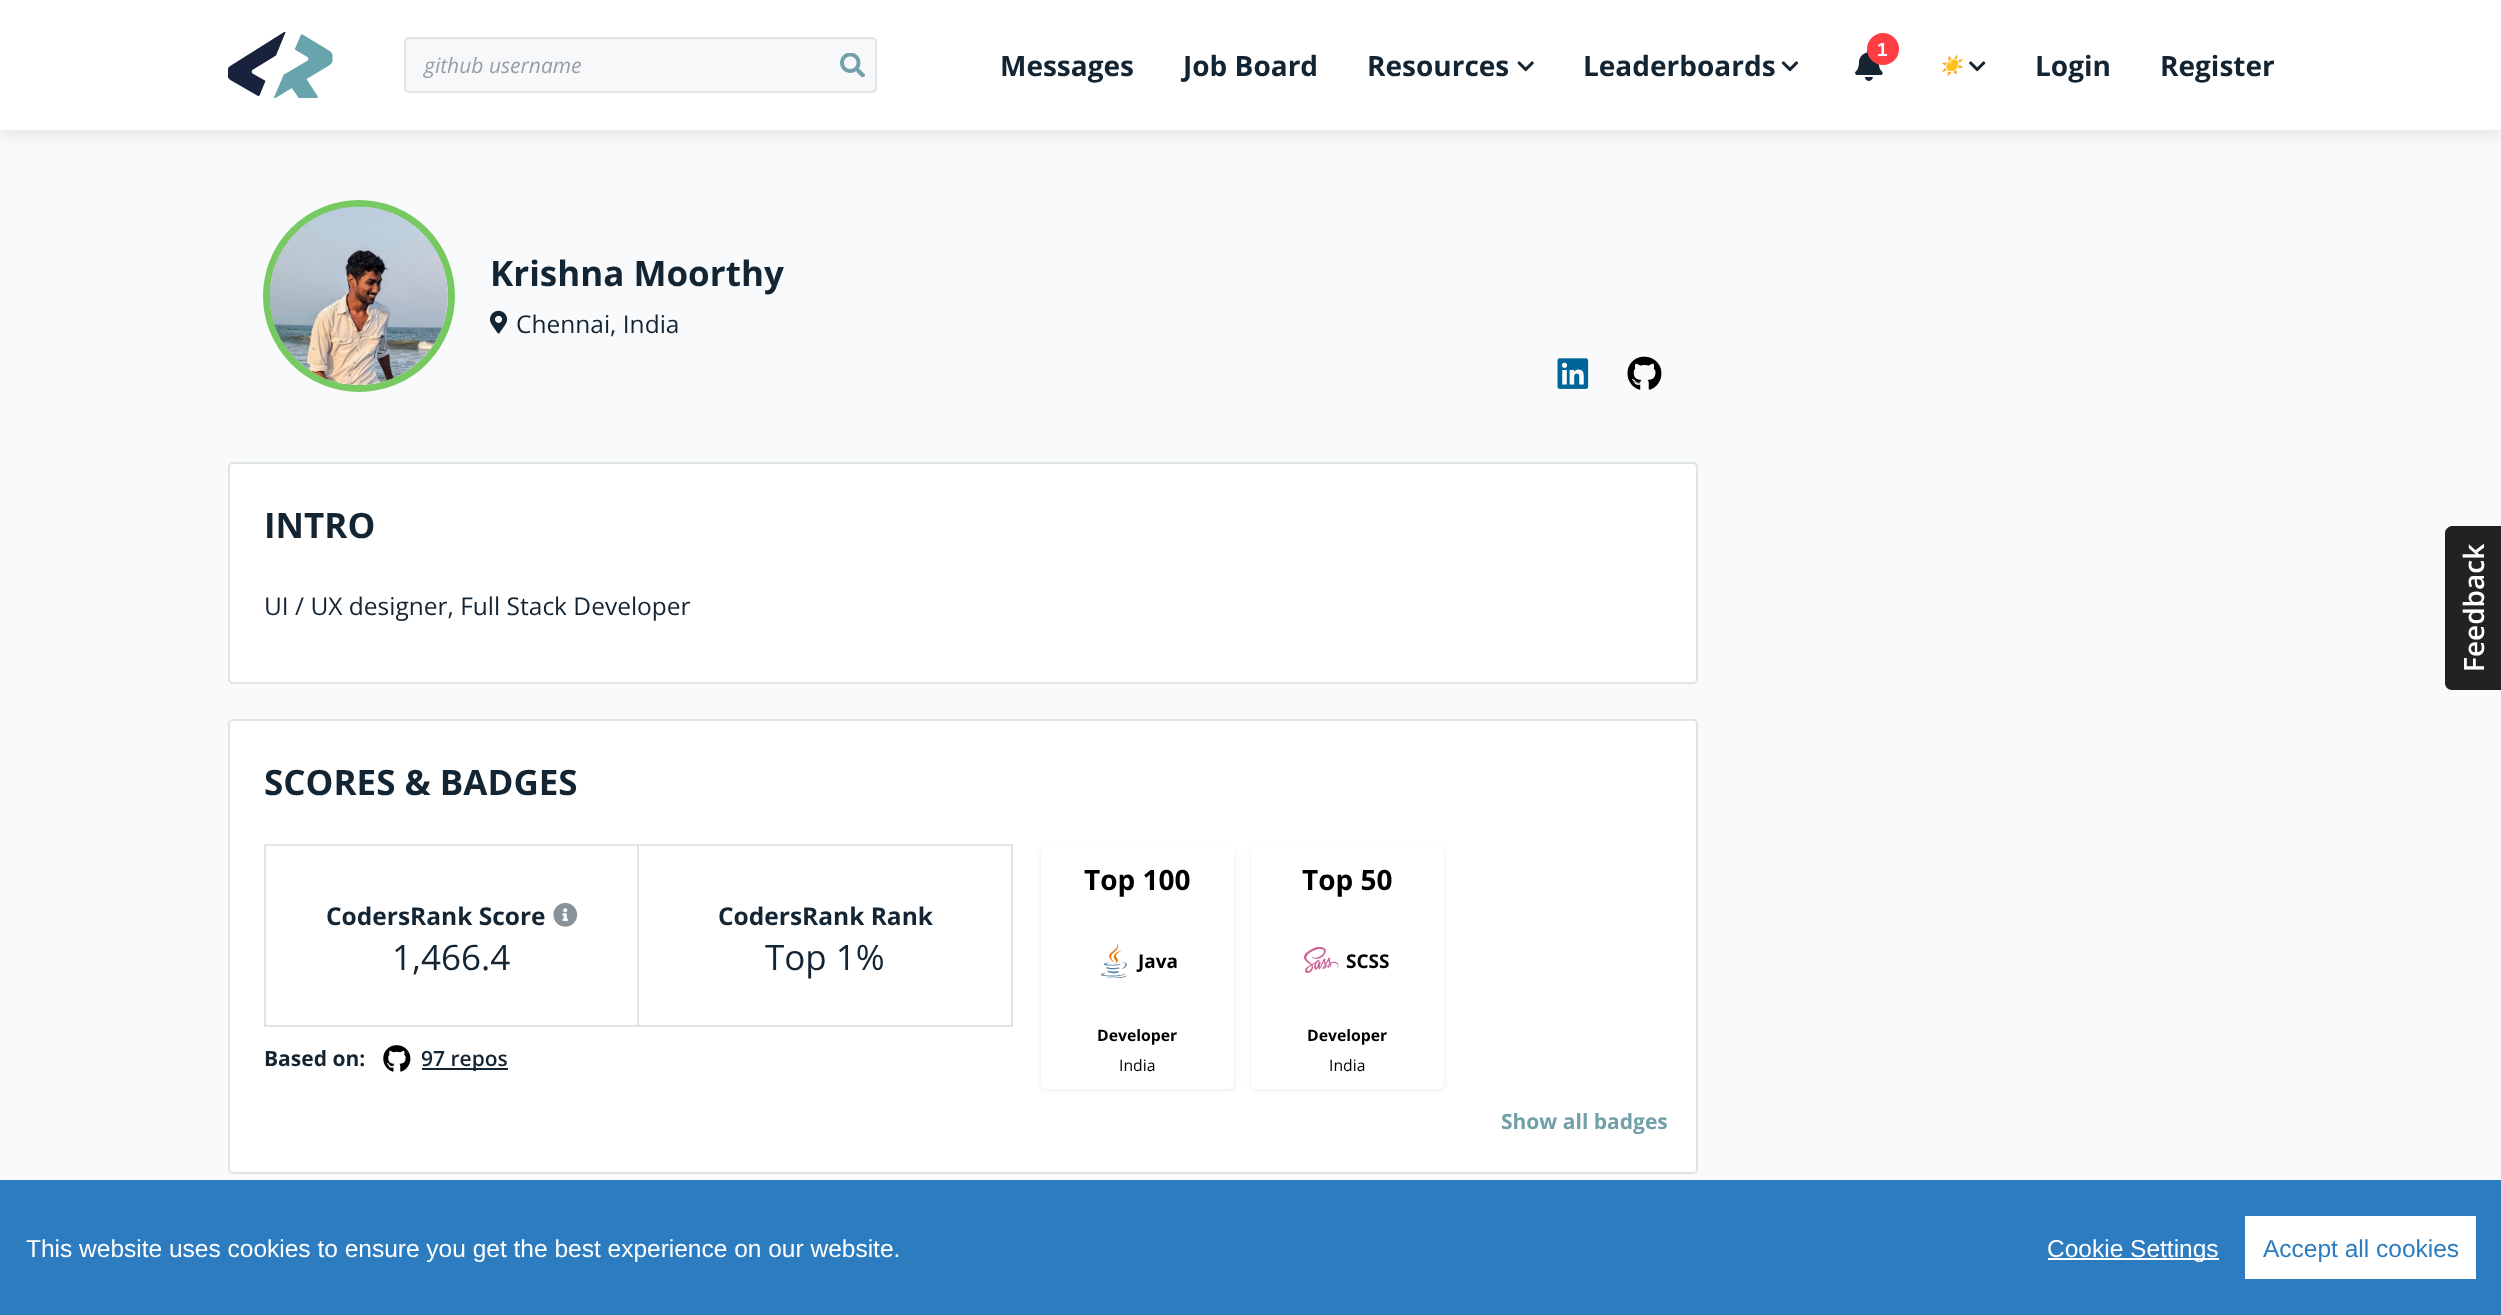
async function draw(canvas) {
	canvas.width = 2501;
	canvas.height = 1315;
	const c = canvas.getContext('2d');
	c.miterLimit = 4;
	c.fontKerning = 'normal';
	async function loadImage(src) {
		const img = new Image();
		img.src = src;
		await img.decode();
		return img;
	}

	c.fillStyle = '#f9fafb';
	c.fillRect(0, 0, 2501, 1315);
	c.fillStyle = '#0000001a';
	c.filter = 'blur(9px)';
	c.beginPath();
	c.rect(0, 4, 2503, 129);
	c.fill();
	c.filter = 'none';
	c.fillStyle = '#fff';
	c.fillRect(0, 0, 2501, 130);
	c.drawImage(await loadImage('img1.png'), 228, 32, 105, 66);
	c.fillStyle = '#f6f8f9';
	c.beginPath();
	c.roundRect(404, 37, 473, 56, 5);
	c.fill();
	c.drawImage(await loadImage('img2.png'), 840, 53, 25, 24);
	c.beginPath();
	c.roundRect(405, 38, 471, 54, 4);
	c.strokeStyle = '#e0e4e5';
	c.lineWidth = 2;
	c.stroke();
	c.font = 'italic 21px Open Sans';
	c.fillStyle = '#999ea4';
	c.fillText('github username', 424, 73);
	c.drawImage(await loadImage('img3.png'), 1855, 49, 28, 32);
	c.fillStyle = '#ff3e43';
	c.beginPath();
	c.arc(1883, 49, 16, 0, 2 * Math.PI);
	c.fill();
	c.font = 'bold 19px Liberation Sans';
	c.fillStyle = '#fff';
	c.fillText('1', 1877, 56);
	c.font = 'bold 28px Open Sans';
	c.fillStyle = '#132433';
	for (const [text, x, y] of [
		['Messages', 1000, 76],
		['Job Board', 1183, 76],
		['Resources', 1367, 76],
	]) {
		c.fillText(text, x, y);
	}
	c.drawImage(await loadImage('img4.png'), 1517, 61, 17, 11);
	c.fillText('Leaderboards', 1583, 76);
	c.drawImage(await loadImage('img5.png'), 1781, 61, 18, 11);
	c.font = 'italic bold 19px Noto Color Emoji';
	c.fillText('☀️', 1939, 72);
	c.drawImage(await loadImage('img6.png'), 1969, 61, 17, 11);
	c.font = 'bold 28px Open Sans';
	c.fillText('Login', 2035, 76);
	c.fillText('Register', 2160, 76);
	c.fillStyle = '#fff';
	c.beginPath();
	c.arc(359, 296, 92.5, 0, 2 * Math.PI);
	c.fill();
	c.strokeStyle = '#76ca61';
	c.lineWidth = 7;
	c.stroke();
	c.drawImage(await loadImage('img7.png'), 269, 206, 179, 179);
	c.font = 'bold 35px Open Sans';
	c.fillStyle = '#132433';
	c.fillText('Krishna Moorthy', 490, 286);
	c.drawImage(await loadImage('img8.png'), 490, 310, 18, 24);
	c.font = '24.5px Open Sans';
	c.fillText('Chennai, India', 516, 333);
	c.drawImage(await loadImage('img9.png'), 1557, 358, 32, 31);
	c.drawImage(await loadImage('img10.png'), 1627, 356, 35, 34);
	c.fillStyle = '#fff';
	c.beginPath();
	c.roundRect(229, 463, 1468, 220, 4);
	c.fill();
	c.strokeStyle = '#e0e4e5';
	c.lineWidth = 2;
	c.stroke();
	c.font = 'bold 35px Open Sans';
	c.fillStyle = '#132433';
	c.fillText('INTRO', 264, 538);
	c.font = '24.5px Open Sans';
	c.fillText('UI / UX designer, Full Stack Developer', 264, 615);
	c.fillStyle = '#fff';
	c.beginPath();
	c.roundRect(229, 720, 1468, 453, 4);
	c.fill();
	c.stroke();
	c.font = 'bold 35px Open Sans';
	c.fillStyle = '#132433';
	c.fillText('SCORES & BADGES', 264, 795);
	c.strokeRect(265, 845, 747, 181);
	c.fillStyle = '#e0e4e5';
	c.fillRect(637, 845, 2, 181);
	c.font = 'bold 24.5px Open Sans';
	c.fillStyle = '#132433';
	c.fillText('CodersRank Score', 326, 925);
	c.drawImage(await loadImage('img11.png'), 553, 903, 25, 24);
	c.font = '35px Open Sans';
	c.fillText('1,466.4', 392, 970);
	c.font = 'bold 24.5px Open Sans';
	c.fillText('CodersRank Rank', 718, 925);
	c.font = '35px Open Sans';
	c.fillText('Top 1%', 765, 970);
	c.font = 'bold 21px Open Sans';
	c.fillText('Based on:', 264, 1066);
	c.drawImage(await loadImage('img12.png'), 383, 1045, 28, 27);
	c.fillRect(422, 1068, 86, 2);
	c.font = '600 21px Open Sans';
	c.fillText('97 repos', 421, 1066);
	c.fillStyle = '#0a32361a';
	c.filter = 'blur(2.5px)';
	c.beginPath();
	c.roundRect(1041, 849, 193, 241, 5);
	c.fill();
	c.filter = 'none';
	c.fillStyle = '#fff';
	c.beginPath();
	c.roundRect(1041, 847, 193, 242, 5);
	c.fill();
	c.font = 'bold 28px Open Sans';
	c.fillStyle = '#000';
	c.fillText('Top 100', 1084, 890);
	c.drawImage(await loadImage('img13.png'), 1101, 943, 26, 35);
	c.font = 'bold 19px Open Sans';
	c.fillText('Java', 1138, 968);
	c.font = 'bold 15.75px Open Sans';
	c.fillText('Developer', 1097, 1041);
	c.font = '15.75px Open Sans';
	c.fillText('India', 1119, 1071);
	c.fillStyle = '#0a32361a';
	c.filter = 'blur(2.5px)';
	c.beginPath();
	c.roundRect(1251, 849, 193, 241, 5);
	c.fill();
	c.filter = 'none';
	c.fillStyle = '#fff';
	c.beginPath();
	c.roundRect(1251, 847, 193, 242, 5);
	c.fill();
	c.font = 'bold 28px Open Sans';
	c.fillStyle = '#000';
	c.fillText('Top 50', 1302, 890);
	c.drawImage(await loadImage('img14.png'), 1304, 947, 35, 26);
	c.font = 'bold 19px Open Sans';
	c.fillText('SCSS', 1346, 968);
	c.font = 'bold 15.75px Open Sans';
	c.fillText('Developer', 1307, 1041);
	c.font = '15.75px Open Sans';
	c.fillText('India', 1329, 1071);
	c.font = 'bold 21px Open Sans';
	c.fillStyle = '#72a0a8';
	c.fillText('Show all badges', 1501, 1129);
	c.fillStyle = '#222';
	c.beginPath();
	c.moveTo(2445, 683);
	c.lineTo(2445, 533);
	c.bezierCurveTo(2445, 530, 2448, 526, 2452, 526);
	c.lineTo(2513, 526);
	c.lineTo(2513, 690);
	c.lineTo(2452, 690);
	c.bezierCurveTo(2448, 690, 2445, 687, 2445, 683);
	c.closePath();
	c.fill();
	c.font = '600 28px Open Sans';
	c.fillStyle = '#fff';
	c.save();
	c.translate(2484, 672);
	c.rotate(-90 * Math.PI / 180);
	c.fillText('Feedback', 0, 0);
	c.restore();
	c.fillStyle = '#2c7cbf';
	c.fillRect(0, 1180, 2501, 135);
	c.font = '24.5px Liberation Sans';
	c.fillStyle = '#fff';
	c.fillText('This website uses cookies to ensure you get the best experience on our website.', 26, 1257);
	c.fillRect(2048, 1258, 171, 2);
	c.fillText('Cookie Settings', 2047, 1257);
	c.fillRect(2245, 1216, 231, 63);
	c.fillStyle = '#2c7cbf';
	c.fillText('Accept all cookies', 2263, 1257);
}

draw(document.querySelector('canvas'));
